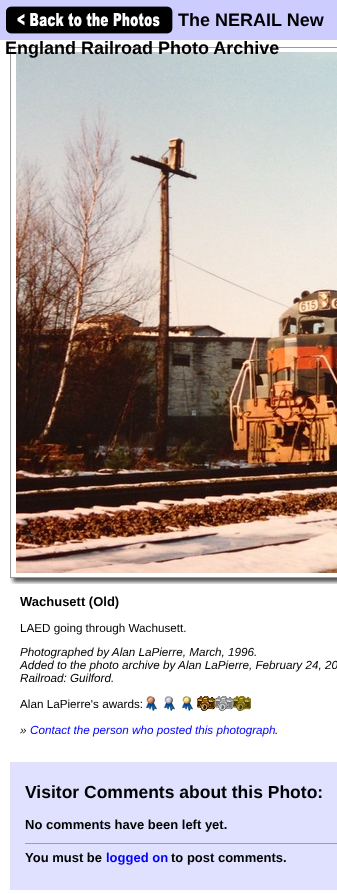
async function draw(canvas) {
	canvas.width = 337;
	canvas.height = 894;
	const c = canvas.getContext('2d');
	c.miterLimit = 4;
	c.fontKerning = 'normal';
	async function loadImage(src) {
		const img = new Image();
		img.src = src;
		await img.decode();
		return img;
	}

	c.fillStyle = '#fff';
	c.fillRect(0, 0, 337, 894);
	c.fillStyle = '#ccf';
	c.fillRect(0, 0, 337, 40);
	c.drawImage(await loadImage('img1.png'), 6, 6, 167, 28);
	c.font = 'bold 18px Liberation Sans';
	c.fillStyle = '#000';
	c.fillText('The NERAIL New', 178, 26);
	c.strokeStyle = '#9a9a9a';
	c.strokeRect(10.5, 47.5, 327, 530);
	c.drawImage(await loadImage('img2.png'), 16, 52, 321, 521);
	c.fillText('England Railroad Photo Archive', 5, 54);
	c.drawImage(await loadImage('img3.png'), 10, 578, 327, 6);
	c.font = 'bold 13px Liberation Sans';
	c.fillText('Wachusett (Old)', 20, 606);
	c.font = '11.7px Liberation Sans';
	c.fillText('LAED going through Wachusett.', 20, 632);
	c.font = 'italic 11.7px Liberation Sans';
	for (const [text, x, y] of [
		['Photographed by Alan LaPierre, March, 1996.', 20, 656],
		['Added to the photo archive by Alan LaPierre, February 24, 20', 20, 669],
		['Railroad: Guilford.', 20, 682],
	]) {
		c.fillText(text, x, y);
	}
	c.font = '11.7px Liberation Sans';
	c.fillText('Alan LaPierre\'s awards:', 20, 708);
	c.drawImage(await loadImage('img4.png'), 146, 696, 11, 15);
	c.drawImage(await loadImage('img5.png'), 164, 696, 11, 15);
	c.drawImage(await loadImage('img6.png'), 182, 696, 11, 15);
	c.drawImage(await loadImage('img7.png'), 197, 696, 18, 15);
	c.drawImage(await loadImage('img8.png'), 215, 696, 18, 15);
	c.drawImage(await loadImage('img9.png'), 233, 696, 18, 15);
	c.font = 'italic 11.7px Liberation Sans';
	c.fillText('»', 20, 734);
	c.fillStyle = '#00f';
	c.fillText('Contact the person who posted this photograph', 30, 734);
	c.fillStyle = '#000';
	c.fillText('.', 275, 734);
	c.fillStyle = '#e0e0ff';
	c.fillRect(10, 762, 327, 128);
	c.font = 'bold 17.5px Liberation Sans';
	c.fillStyle = '#000';
	c.fillText('Visitor Comments about this Photo:', 25, 798);
	c.font = 'bold 13px Liberation Sans';
	c.fillText('No comments have been left yet.', 25, 829);
	c.fillStyle = '#9f9f9f';
	c.fillRect(25, 843, 312, 1);
	c.fillStyle = '#000';
	c.fillText('You must be', 25, 862);
	c.fillStyle = '#00f';
	c.fillText('logged on', 106, 862);
	c.fillStyle = '#000';
	c.fillText('to post comments.', 171, 862);
}

draw(document.querySelector('canvas'));
